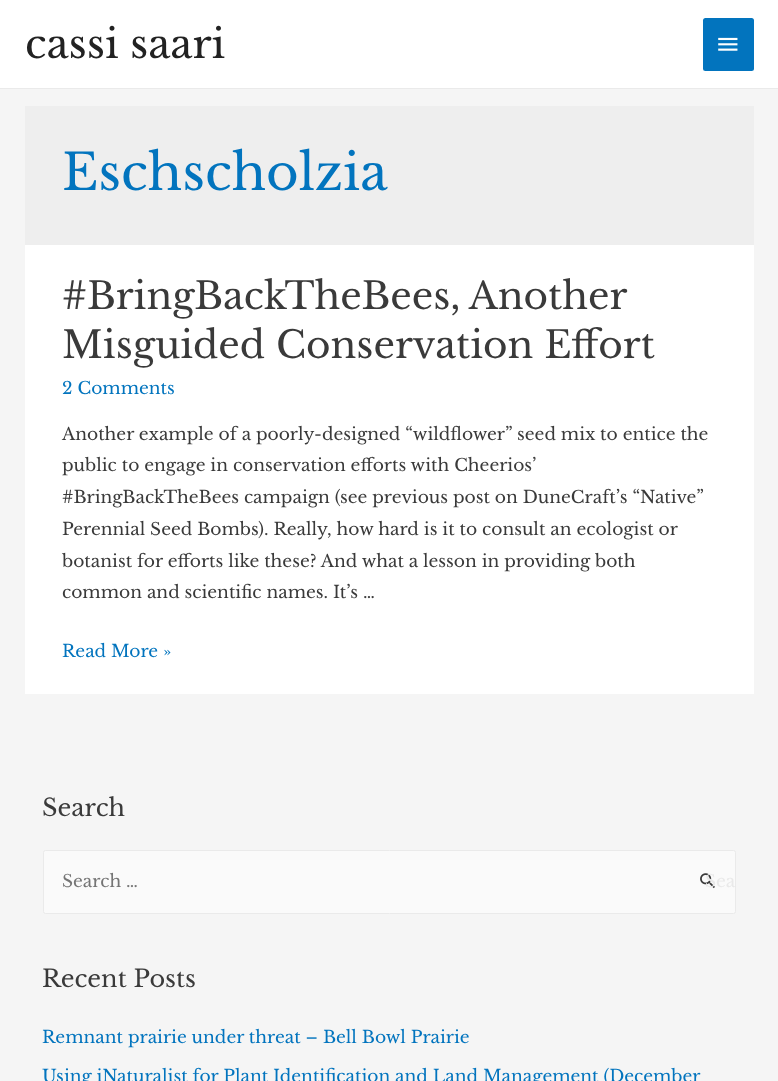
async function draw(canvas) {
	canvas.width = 778;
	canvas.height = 1081;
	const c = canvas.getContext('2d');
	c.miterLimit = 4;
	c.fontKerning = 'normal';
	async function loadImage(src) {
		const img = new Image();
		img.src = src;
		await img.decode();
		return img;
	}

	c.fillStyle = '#f5f5f5';
	c.fillRect(0, 0, 778, 1081);
	c.fillStyle = '#eaeaea';
	c.fillRect(0, 88, 778, 1);
	c.fillStyle = '#fff';
	c.fillRect(0, 0, 778, 88);
	c.font = '40px Libre Baskerville';
	c.fillStyle = '#222';
	c.fillText('cassi saari', 25, 58);
	c.fillStyle = '#0274be';
	c.beginPath();
	c.roundRect(703, 18, 51, 53, 2.5);
	c.fill();
	c.drawImage(await loadImage('img1.png'), 718, 37, 20, 14);
	c.fillStyle = '#eee';
	c.fillRect(25, 106, 729, 139);
	c.font = '50px Libre Baskerville';
	c.fillStyle = '#0274be';
	c.fillText('Eschscholzia', 62, 190);
	c.fillStyle = '#fff';
	c.fillRect(25, 245, 729, 449);
	c.wordSpacing = '-1px';
	c.font = '37.5px Libre Baskerville';
	c.fillStyle = '#3a3a3a';
	c.fillText('#BringBackTheBees, Another', 62, 309);
	c.wordSpacing = '0px';
	c.fillText('Misguided Conservation Effort', 62, 358);
	c.font = '17.1px Libre Baskerville';
	c.fillStyle = '#0274be';
	c.fillText('2 Comments', 62, 394);
	c.fillStyle = '#3a3a3a';
	for (const [text, x, y] of [
		['Another example of a poorly-designed “wildflower” seed mix to entice the', 62, 440],
		['public to engage in conservation efforts with Cheerios’', 62, 471],
		['#BringBackTheBees campaign (see previous post on DuneCraft’s “Native”', 62, 503],
		['Perennial Seed Bombs). Really, how hard is it to consult an ecologist or', 62, 535],
		['botanist for efforts like these? And what a lesson in providing both', 62, 567],
		['common and scientific names. It’s …', 62, 598],
	]) {
		c.fillText(text, x, y);
	}
	c.fillStyle = '#0274be';
	c.fillText('Read More »', 62, 657);
	c.font = '24px Libre Baskerville';
	c.fillStyle = '#3a3a3a';
	c.fillText('Search', 42, 816);
	c.fillStyle = '#fafafa';
	c.beginPath();
	c.roundRect(43.5, 850.5, 692, 63, 2);
	c.fill();
	c.strokeStyle = '#eaeaea';
	c.stroke();
	c.font = '17.1px Libre Baskerville';
	c.fillStyle = '#757575';
	c.fillText('Search …', 62, 887);
	c.drawImage(await loadImage('img2.png'), 700, 873, 15, 16);
	c.fillStyle = '#e9e9e9';
	c.fillText('Sea', 705, 887);
	c.font = '24px Libre Baskerville';
	c.fillStyle = '#3a3a3a';
	c.fillText('Recent Posts', 42, 987);
	c.font = '17.1px Libre Baskerville';
	c.fillStyle = '#0274be';
	c.fillText('Remnant prairie under threat – Bell Bowl Prairie', 42, 1043);
	c.fillText('Using iNaturalist for Plant Identification and Land Management (December', 42, 1082);
}

draw(document.querySelector('canvas'));
